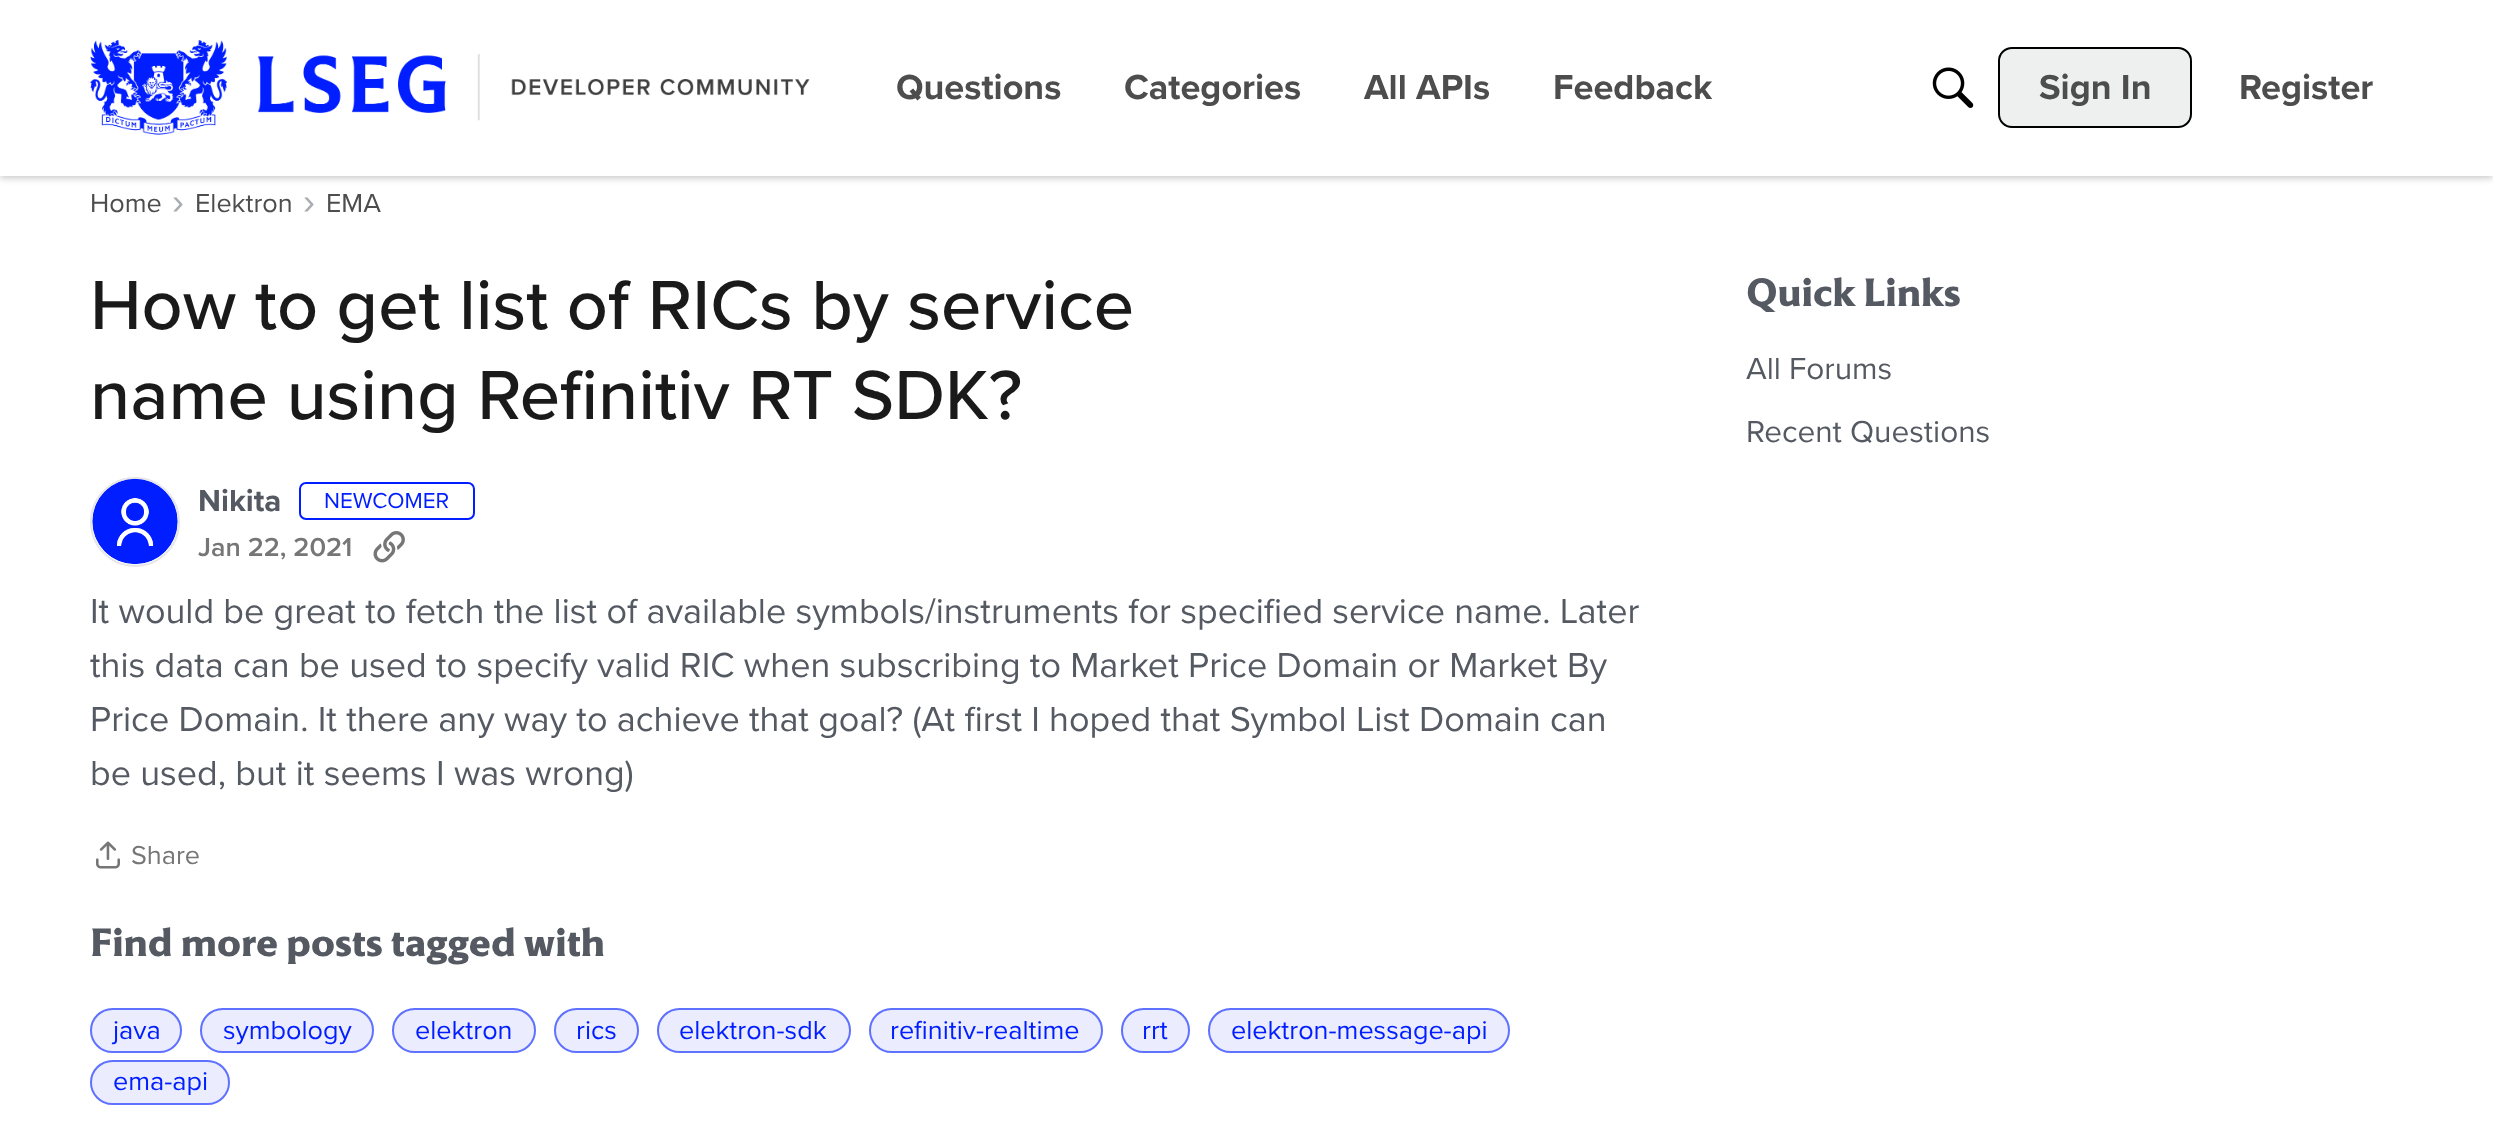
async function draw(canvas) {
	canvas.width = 2493;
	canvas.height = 1136;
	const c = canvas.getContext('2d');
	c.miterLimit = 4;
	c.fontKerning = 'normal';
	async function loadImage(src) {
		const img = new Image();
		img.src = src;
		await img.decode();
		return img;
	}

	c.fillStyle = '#fff';
	c.fillRect(0, 0, 2493, 1136);
	c.fillStyle = '#00000038';
	c.filter = 'blur(3.5px)';
	c.beginPath();
	c.rect(0, 2, 2493, 176);
	c.fill();
	c.filter = 'none';
	c.fillStyle = '#fff';
	c.fillRect(0, 0, 2493, 176);
	c.drawImage(await loadImage('img1.png'), 90, 40, 720, 95);
	c.font = 'bold 36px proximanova';
	c.fillStyle = '#4d4d4d';
	for (const [text, x, y] of [
		['Questions', 896, 99],
		['Categories', 1124, 99],
		['All APIs', 1364, 99],
		['Feedback', 1553, 99],
	]) {
		c.fillText(text, x, y);
	}
	c.drawImage(await loadImage('img2.png'), 1932, 67, 42, 41);
	c.fillStyle = '#eeefef';
	c.beginPath();
	c.roundRect(1999, 48, 192, 79, 13);
	c.fill();
	c.strokeStyle = '#000';
	c.lineWidth = 2;
	c.stroke();
	c.fillStyle = '#4d4d4d';
	c.fillText('Sign In', 2039, 99);
	c.fillText('Register', 2239, 99);
	c.font = '27px proximanova';
	c.fillText('Home', 90, 212);
	c.font = '36px Liberation Sans';
	c.fillStyle = '#aaadb1';
	c.fillText('›', 172, 214);
	c.font = '27px proximanova';
	c.fillStyle = '#4d4d4d';
	c.fillText('Elektron', 195, 212);
	c.font = '36px Liberation Sans';
	c.fillStyle = '#aaadb1';
	c.fillText('›', 303, 214);
	c.font = '27px proximanova';
	c.fillStyle = '#4d4d4d';
	c.fillText('EMA', 326, 212);
	c.font = '500 72px Proxima Nova';
	c.fillStyle = '#1a1a1a';
	c.fillText('How to get list of RICs by service', 90, 329);
	c.fillText('name using Refinitiv RT SDK?', 90, 419);
	c.beginPath();
	c.arc(135, 522, 44, 0, 2 * Math.PI);
	c.strokeStyle = '#e6e6e8';
	c.stroke();
	c.drawImage(await loadImage('img3.png'), 92, 478, 86, 87);
	c.font = 'bold 31.5px proximanova';
	c.fillStyle = '#555a62';
	c.fillText('Nikita', 198, 511);
	c.beginPath();
	c.roundRect(300, 483, 174, 36, 6);
	c.strokeStyle = '#001eff';
	c.stroke();
	c.font = '22.5px proximanova';
	c.fillStyle = '#001eff';
	c.fillText('NEWCOMER', 324, 508);
	c.font = '600 27px Proxima Nova';
	c.fillStyle = '#767676';
	c.fillText('Jan 22, 2021', 198, 556);
	c.drawImage(await loadImage('img4.png'), 373, 531, 32, 32);
	c.font = '36px proximanova';
	c.fillStyle = '#555a62';
	for (const [text, x, y] of [
		['It would be great to fetch the list of available symbols/instruments for specified service name. Later', 90, 623],
		['this data can be used to specify valid RIC when subscribing to Market Price Domain or Market By', 90, 677],
		['Price Domain. It there any way to achieve that goal? (At first I hoped that Symbol List Domain can', 90, 731],
		['be used, but it seems I was wrong)', 90, 785],
	]) {
		c.fillText(text, x, y);
	}
	c.drawImage(await loadImage('img5.png'), 96, 841, 24, 28);
	c.font = '27px proximanova';
	c.fillStyle = '#767676';
	c.fillText('Share', 131, 864);
	c.font = 'bold 40.5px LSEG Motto';
	c.fillStyle = '#555a62';
	c.fillText('Find more posts tagged with', 90, 956);
	c.fillStyle = '#ebedff';
	c.beginPath();
	c.roundRect(90, 1008, 92, 45, 22.5);
	c.fill();
	c.beginPath();
	c.roundRect(91, 1009, 90, 43, 21.5);
	c.strokeStyle = '#001eff99';
	c.stroke();
	c.font = '27px proximanova';
	c.fillStyle = '#001eff';
	c.fillText('java', 113, 1039);
	c.fillStyle = '#ebedff';
	c.beginPath();
	c.roundRect(200, 1008, 174, 45, 22.5);
	c.fill();
	c.beginPath();
	c.roundRect(201, 1009, 172, 43, 21.5);
	c.stroke();
	c.fillStyle = '#001eff';
	c.fillText('symbology', 223, 1039);
	c.fillStyle = '#ebedff';
	c.beginPath();
	c.roundRect(392, 1008, 144, 45, 22.5);
	c.fill();
	c.beginPath();
	c.roundRect(393, 1009, 142, 43, 21.5);
	c.stroke();
	c.fillStyle = '#001eff';
	c.fillText('elektron', 415, 1039);
	c.fillStyle = '#ebedff';
	c.beginPath();
	c.roundRect(554, 1008, 85, 45, 22.5);
	c.fill();
	c.beginPath();
	c.roundRect(555, 1009, 83, 43, 21.5);
	c.stroke();
	c.fillStyle = '#001eff';
	c.fillText('rics', 576, 1039);
	c.fillStyle = '#ebedff';
	c.beginPath();
	c.roundRect(657, 1008, 194, 45, 22.5);
	c.fill();
	c.beginPath();
	c.roundRect(658, 1009, 192, 43, 21.5);
	c.stroke();
	c.fillStyle = '#001eff';
	c.fillText('elektron-sdk', 679, 1039);
	c.fillStyle = '#ebedff';
	c.beginPath();
	c.roundRect(869, 1008, 234, 45, 22.5);
	c.fill();
	c.beginPath();
	c.roundRect(870, 1009, 232, 43, 21.5);
	c.stroke();
	c.fillStyle = '#001eff';
	c.fillText('refinitiv-realtime', 890, 1039);
	c.fillStyle = '#ebedff';
	c.beginPath();
	c.roundRect(1121, 1008, 69, 45, 22.5);
	c.fill();
	c.beginPath();
	c.roundRect(1122, 1009, 67, 43, 21.5);
	c.stroke();
	c.fillStyle = '#001eff';
	c.fillText('rrt', 1142, 1039);
	c.fillStyle = '#ebedff';
	c.beginPath();
	c.roundRect(1208, 1008, 302, 45, 22.5);
	c.fill();
	c.beginPath();
	c.roundRect(1209, 1009, 300, 43, 21.5);
	c.stroke();
	c.fillStyle = '#001eff';
	c.fillText('elektron-message-api', 1231, 1039);
	c.fillStyle = '#ebedff';
	c.beginPath();
	c.roundRect(90, 1060, 140, 45, 22.5);
	c.fill();
	c.beginPath();
	c.roundRect(91, 1061, 138, 43, 21.5);
	c.stroke();
	c.fillStyle = '#001eff';
	c.fillText('ema-api', 113, 1090);
	c.font = 'bold 40.5px LSEG Motto';
	c.fillStyle = '#555a62';
	c.fillText('Quick Links', 1746, 306);
	c.font = '31.5px proximanova';
	c.fillText('All Forums', 1746, 379);
	c.fillText('Recent Questions', 1746, 442);
}

draw(document.querySelector('canvas'));
